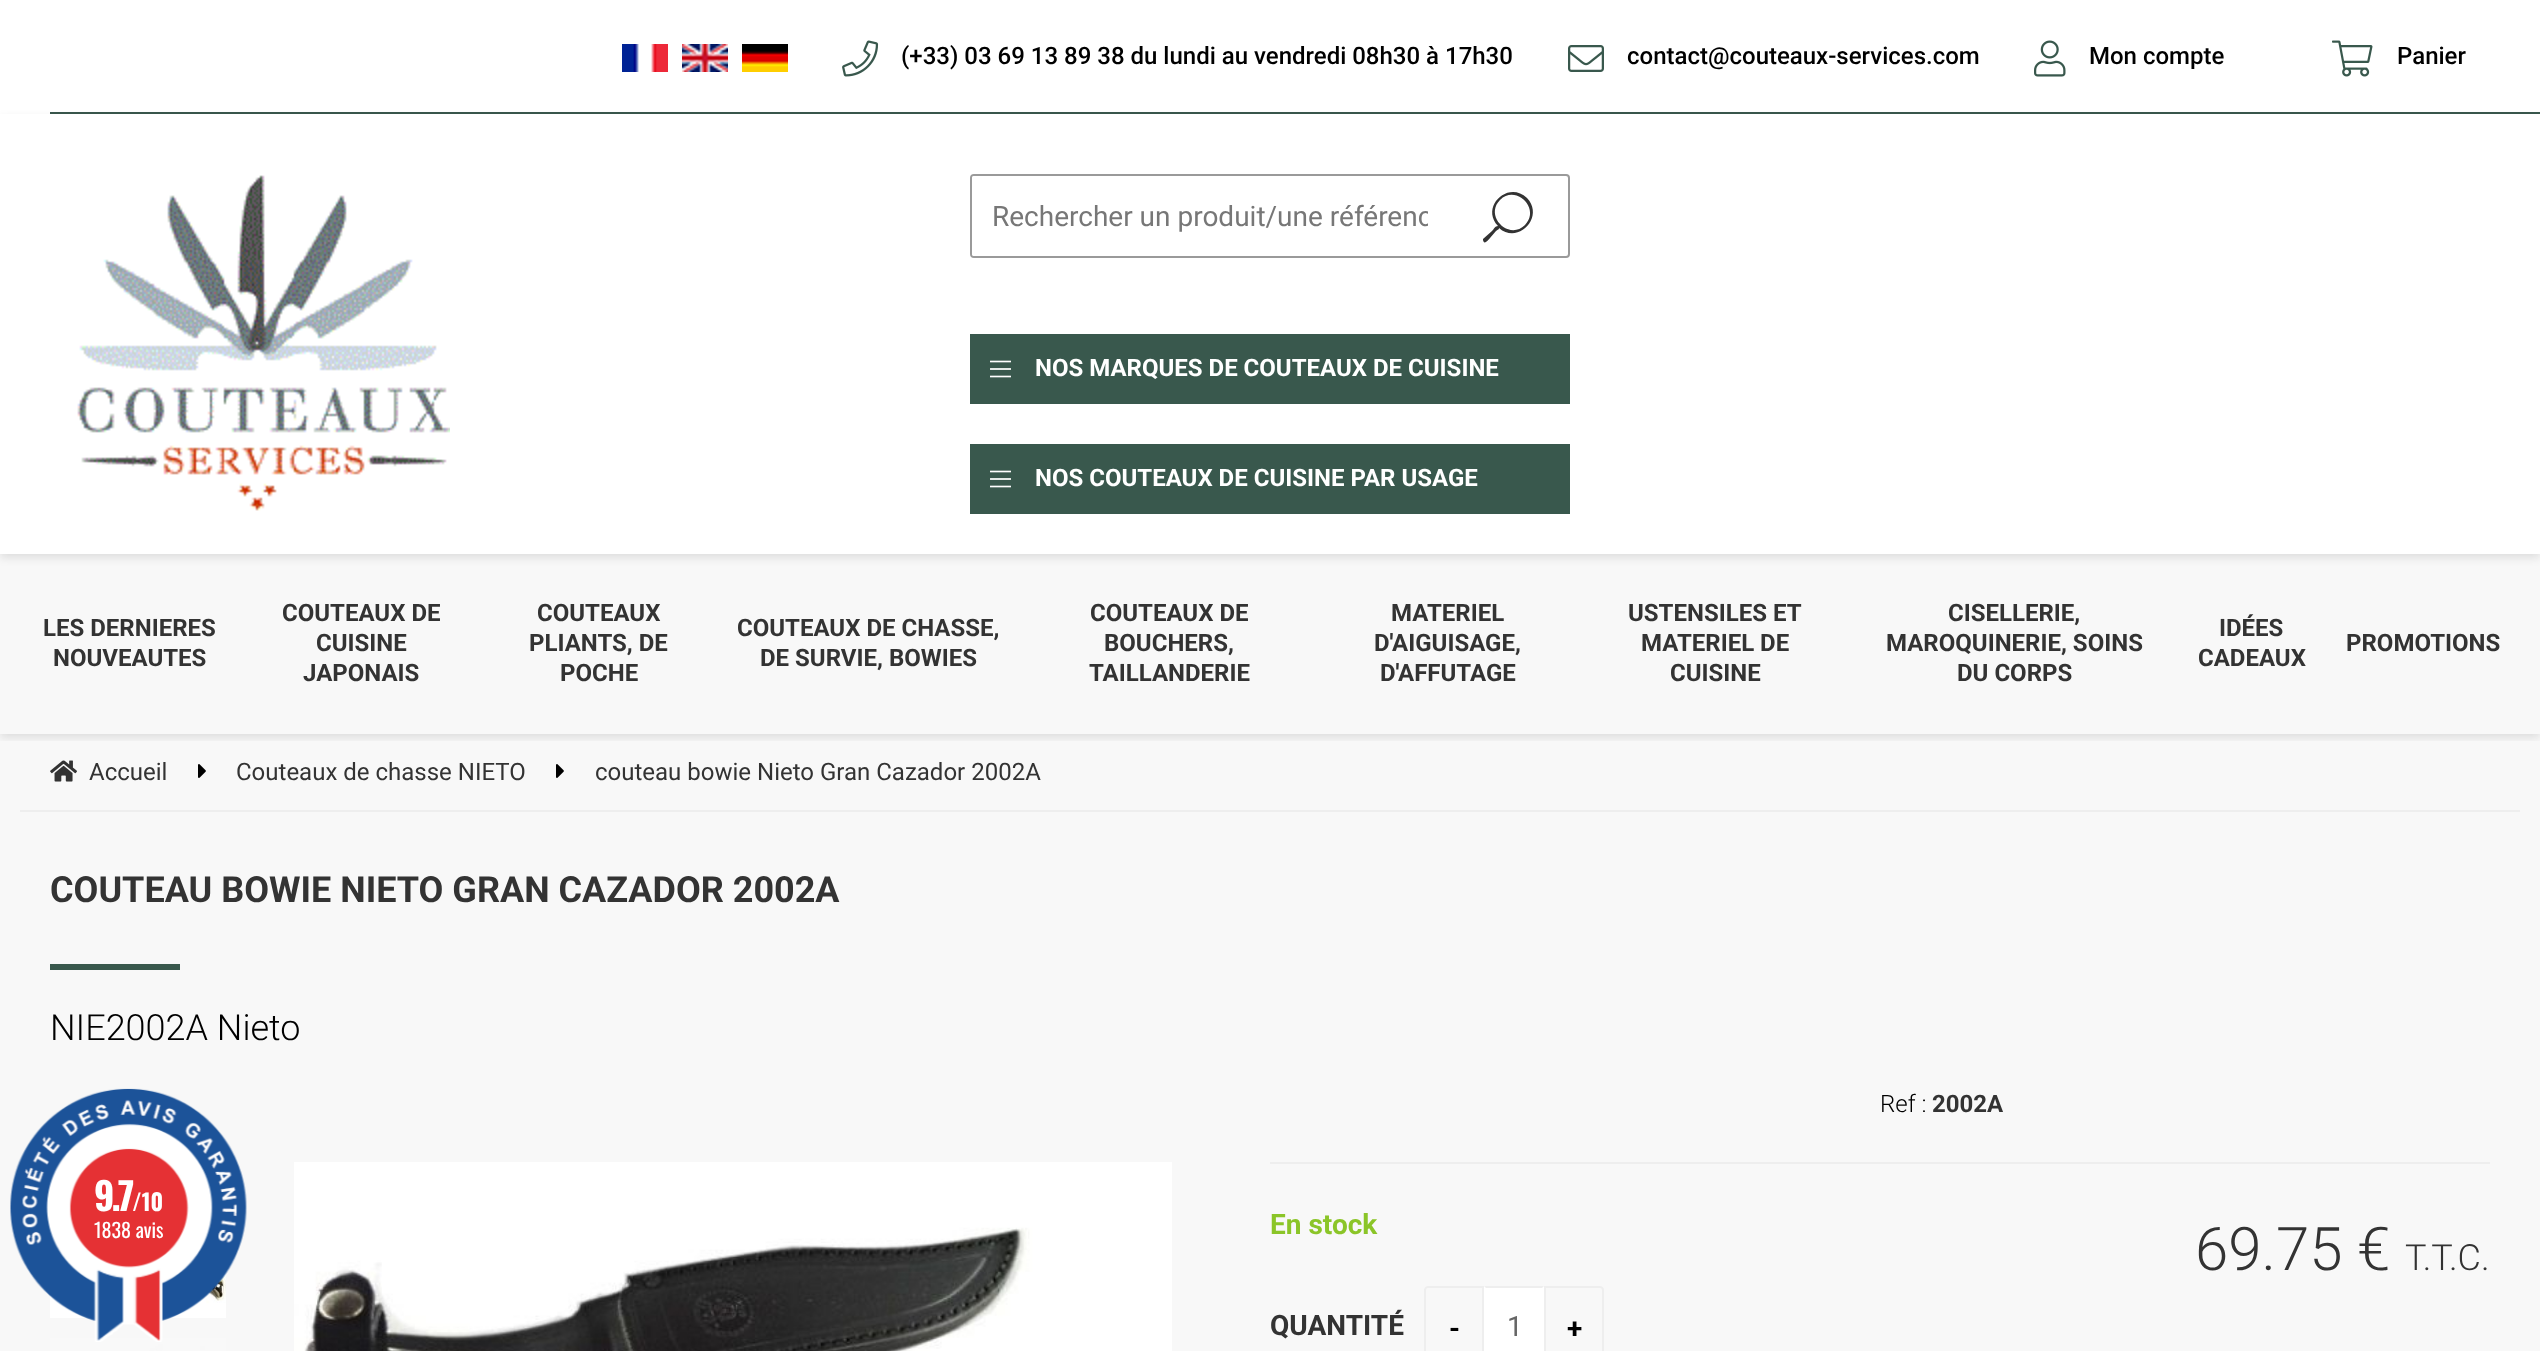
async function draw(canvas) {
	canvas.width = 2540;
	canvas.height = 1351;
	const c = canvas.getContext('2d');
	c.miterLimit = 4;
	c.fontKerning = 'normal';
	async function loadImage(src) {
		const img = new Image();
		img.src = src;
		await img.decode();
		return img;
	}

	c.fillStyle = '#f8f8f8';
	c.fillRect(0, 0, 2540, 1351);
	c.fillStyle = '#fff';
	c.fillRect(0, 0, 2540, 114);
	c.drawImage(await loadImage('img1.png'), 622, 44, 46, 28);
	c.drawImage(await loadImage('img2.png'), 682, 44, 46, 28);
	c.drawImage(await loadImage('img3.png'), 742, 44, 46, 28);
	c.drawImage(await loadImage('img4.png'), 842, 40, 37, 37);
	c.font = '500 24px Roboto';
	c.fillStyle = '#000';
	c.fillText('(+33) 03 69 13 89 38 du lundi au vendredi 08h30 à 17h30', 901, 64);
	c.drawImage(await loadImage('img5.png'), 1568, 45, 36, 27);
	c.fillText('contact@couteaux-services.com', 1627, 64);
	c.drawImage(await loadImage('img6.png'), 2034, 40, 32, 37);
	c.fillText('Mon compte', 2089, 64);
	c.drawImage(await loadImage('img7.png'), 2332, 40, 41, 37);
	c.fillText('Panier', 2397, 64);
	c.fillStyle = '#39584d';
	c.fillRect(50, 112, 2490, 2);
	c.fillStyle = '#0000001a';
	c.filter = 'blur(4px)';
	c.beginPath();
	c.rect(0, 118, 2540, 440);
	c.fill();
	c.filter = 'none';
	c.fillStyle = '#fff';
	c.fillRect(0, 114, 2540, 440);
	c.drawImage(await loadImage('img8.png'), 77, 175, 373, 336);
	c.beginPath();
	c.roundRect(971, 175, 598, 82, 3);
	c.strokeStyle = '#9a9a9a';
	c.lineWidth = 2;
	c.stroke();
	c.beginPath();
	c.roundRect(972, 176, 476, 80, [2, 0, 0, 2]);
	c.fill();
	c.save();
	c.beginPath();
	c.rect(992, 200, 436, 32);
	c.clip();
	c.font = '28px Roboto';
	c.fillStyle = '#777';
	c.fillText('Rechercher un produit/une référenc', 992, 226);
	c.restore();
	c.fillStyle = '#333';
	c.beginPath();
	c.moveTo(1483, 239);
	c.lineTo(1483, 240);
	c.bezierCurveTo(1484, 246, 1489, 239, 1490, 238);
	c.lineTo(1496, 231);
	c.bezierCurveTo(1498, 229, 1499, 230, 1499, 228);
	c.bezierCurveTo(1518, 245, 1545, 217, 1527, 198);
	c.bezierCurveTo(1508, 180, 1480, 207, 1498, 226);
	c.bezierCurveTo(1495, 226, 1494, 229, 1492, 231);
	c.closePath();
	c.moveTo(1525, 225);
	c.bezierCurveTo(1509, 241, 1484, 216, 1500, 200);
	c.bezierCurveTo(1516, 184, 1541, 209, 1525, 225);
	c.closePath();
	c.fill();
	c.fillStyle = '#39584d';
	c.fillRect(970, 334, 600, 70);
	c.drawImage(await loadImage('img9.png'), 990, 360, 21, 18);
	c.font = 'bold 24px Roboto';
	c.fillStyle = '#fff';
	c.fillText('NOS MARQUES DE COUTEAUX DE CUISINE', 1035, 376);
	c.fillStyle = '#39584d';
	c.fillRect(970, 444, 600, 70);
	c.drawImage(await loadImage('img9.png'), 990, 470, 21, 18);
	c.fillStyle = '#fff';
	c.fillText('NOS COUTEAUX DE CUISINE PAR USAGE', 1035, 486);
	c.save();
	c.beginPath();
	c.rect(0, 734, 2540, 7);
	c.clip();
	c.fillStyle = '#0000001a';
	c.filter = 'blur(4px)';
	c.beginPath();
	c.rect(0, 558, 2540, 180);
	c.fill();
	c.filter = 'none';
	c.restore();
	c.fillStyle = '#333';
	for (const [text, x, y] of [
		['LES DERNIERES', 43, 636],
		['NOUVEAUTES', 53, 666],
		['COUTEAUX DE', 282, 621],
		['CUISINE', 316, 651],
		['JAPONAIS', 303, 681],
		['COUTEAUX', 537, 621],
		['PLIANTS, DE', 529, 651],
		['POCHE', 560, 681],
		['COUTEAUX DE CHASSE,', 737, 636],
		['DE SURVIE, BOWIES', 760, 666],
		['COUTEAUX DE', 1090, 621],
		['BOUCHERS,', 1104, 651],
		['TAILLANDERIE', 1089, 681],
		['MATERIEL', 1391, 621],
		['D\'AIGUISAGE,', 1374, 651],
		['D\'AFFUTAGE', 1380, 681],
		['USTENSILES ET', 1628, 621],
		['MATERIEL DE', 1641, 651],
		['CUISINE', 1670, 681],
		['CISELLERIE,', 1948, 621],
		['MAROQUINERIE, SOINS', 1886, 651],
		['DU CORPS', 1957, 681],
		['IDÉES', 2219, 636],
		['CADEAUX', 2198, 666],
		['PROMOTIONS', 2346, 651],
	]) {
		c.fillText(text, x, y);
	}
	c.fillStyle = '#eee';
	c.fillRect(20, 810, 2500, 2);
	c.drawImage(await loadImage('img10.png'), 50, 760, 27, 22);
	c.font = '24px Roboto';
	c.fillStyle = '#333';
	c.fillText('Accueil', 89, 780);
	c.drawImage(await loadImage('img11.png'), 198, 764, 8, 14);
	c.fillText('Couteaux de chasse NIETO', 236, 780);
	c.drawImage(await loadImage('img11.png'), 556, 764, 8, 14);
	c.fillText('couteau bowie Nieto Gran Cazador 2002A', 595, 780);
	c.font = 'bold 36px Roboto';
	c.fillText('COUTEAU BOWIE NIETO GRAN CAZADOR 2002A', 50, 902);
	c.fillStyle = '#39584d';
	c.fillRect(50, 964, 130, 6);
	c.font = '300 36px Roboto';
	c.fillStyle = '#000';
	c.fillText('NIE2002A Nieto', 50, 1040);
	c.font = '300 24px Roboto';
	c.fillText('Ref :', 1880, 1112);
	c.font = 'bold 24px Roboto';
	c.fillStyle = '#333';
	c.fillText('2002A', 1932, 1112);
	c.drawImage(await loadImage('img12.png'), 50, 1271, 176, 47);
	c.fillStyle = '#f3f3f3';
	c.fillRect(50, 1338, 176, 13);
	c.drawImage(await loadImage('img13.png'), 50, 1338, 176, 13);
	c.drawImage(await loadImage('img14.png'), 294, 1162, 878, 189);
	c.fillStyle = '#eee';
	c.fillRect(1270, 1162, 1220, 2);
	c.font = 'bold 28px Roboto';
	c.fillStyle = '#8bc528';
	c.fillText('En stock', 1270, 1234);
	c.font = '300 60px Roboto';
	c.fillStyle = '#333';
	c.fillText('69.75 €', 2195, 1270);
	c.font = '300 36px Roboto';
	c.fillText('T.T.C.', 2405, 1270);
	c.font = 'bold 28px Roboto';
	c.fillText('QUANTITÉ', 1270, 1335);
	c.beginPath();
	c.moveTo(1428, 1287);
	c.lineTo(1483, 1287);
	c.lineTo(1483, 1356);
	c.lineTo(1428, 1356);
	c.bezierCurveTo(1426.5, 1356, 1425, 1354.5, 1425, 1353);
	c.lineTo(1425, 1290);
	c.bezierCurveTo(1425, 1288.5, 1426.5, 1287, 1428, 1287);
	c.closePath();
	c.strokeStyle = '#eee';
	c.stroke();
	c.fillStyle = '#000';
	c.fillText('-', 1449, 1338);
	c.fillStyle = '#fff';
	c.fillRect(1484, 1286, 60, 65);
	c.fillStyle = '#eee';
	c.beginPath();
	c.moveTo(1484, 1286);
	c.lineTo(1544, 1286);
	c.lineTo(1542, 1288);
	c.lineTo(1486, 1288);
	c.closePath();
	c.fill();
	c.font = '28px Roboto';
	c.fillStyle = '#666';
	c.fillText('1', 1507, 1336);
	c.beginPath();
	c.moveTo(1545, 1287);
	c.lineTo(1600, 1287);
	c.bezierCurveTo(1601.5, 1287, 1603, 1288.5, 1603, 1290);
	c.lineTo(1603, 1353);
	c.bezierCurveTo(1603, 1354.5, 1601.5, 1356, 1600, 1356);
	c.lineTo(1545, 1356);
	c.closePath();
	c.stroke();
	c.font = 'bold 28px Roboto';
	c.fillStyle = '#000';
	c.fillText('+', 1567, 1338);
	c.drawImage(await loadImage('img15.png'), 10, 1088, 237, 254);
	c.letterSpacing = '-3px';
	c.font = 'bold 38px Oswald';
	c.fillStyle = '#fff';
	c.fillText('9.7', 94, 1211);
	c.letterSpacing = '0px';
	c.font = 'bold 23px Oswald';
	c.fillText('/10', 132, 1211);
	c.font = '20px Oswald';
	c.fillText('1838 avis', 94, 1238);
}

draw(document.querySelector('canvas'));
